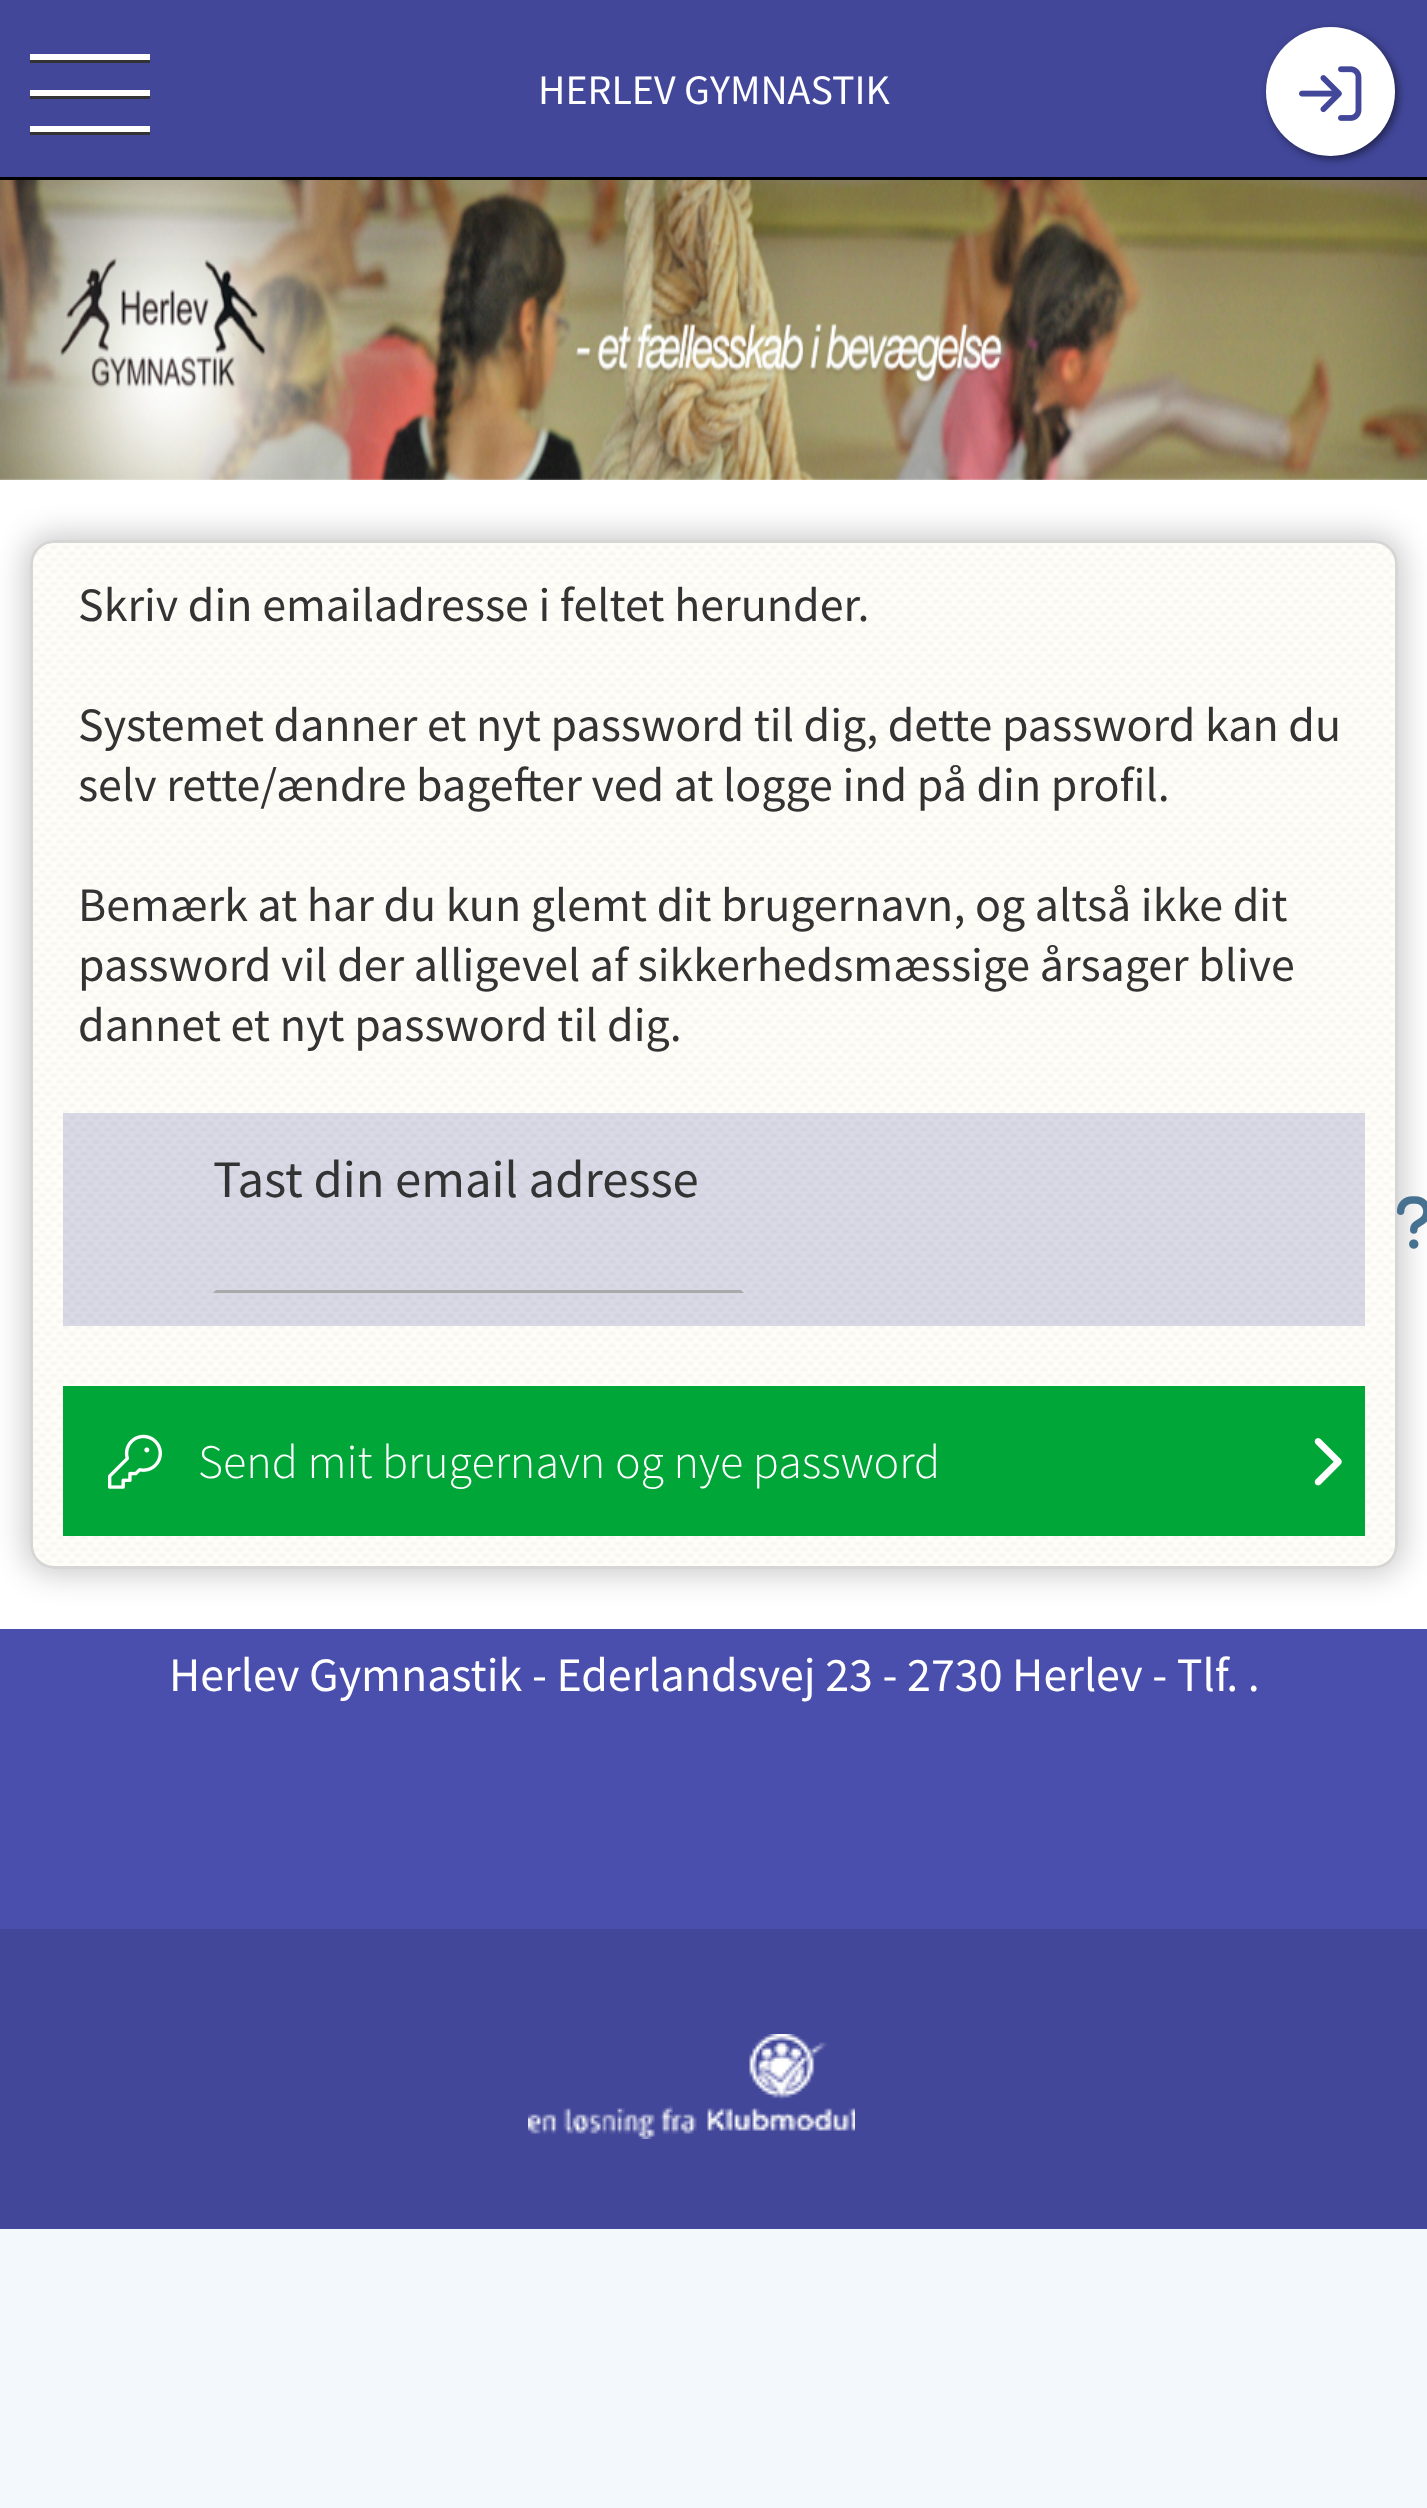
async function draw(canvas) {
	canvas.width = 1427;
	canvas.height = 2508;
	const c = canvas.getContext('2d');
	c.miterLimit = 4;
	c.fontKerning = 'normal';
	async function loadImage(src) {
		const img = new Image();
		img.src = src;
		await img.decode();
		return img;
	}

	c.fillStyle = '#f2f8fb';
	c.fillRect(0, 0, 1427, 2508);
	for (const [x, y, w, h, color] of [
		[0, 478, 1427, 1151, '#fff'],
		[0, 0, 1427, 177, '#42479a'],
		[0, 177, 1427, 3, '#000'],
		[30, 60, 120, 3, '#333'],
		[30, 54, 120, 6, '#fff'],
		[30, 96, 120, 3, '#333'],
		[30, 90, 120, 6, '#fff'],
		[30, 132, 120, 3, '#333'],
		[30, 126, 120, 6, '#fff'],
	]) {
		c.fillStyle = color;
		c.fillRect(x, y, w, h);
	}
	c.font = '42px Source Sans Pro';
	c.fillText('HERLEV GYMNASTIK', 538, 104);
	c.fillStyle = '#00000080';
	c.filter = 'blur(4.5px)';
	c.beginPath();
	c.roundRect(1269, 30, 129, 129, 64.5);
	c.fill();
	c.filter = 'none';
	c.fillStyle = '#fff';
	c.beginPath();
	c.arc(1330.5, 91.5, 64.5, 0, 2 * Math.PI);
	c.fill();
	c.drawImage(await loadImage('img1.png'), 1299, 66, 63, 55);
	c.drawImage(await loadImage('img2.png'), 0, 180, 1427, 300);
	c.fillStyle = '#00000033';
	c.filter = 'blur(15px)';
	c.beginPath();
	c.roundRect(24, 534, 1380, 1041, 30);
	c.fill();
	c.filter = 'none';
	c.drawImage(await loadImage('img3.png'), 30, 540, 1368, 1029);
	c.beginPath();
	c.roundRect(31.5, 541.5, 1365, 1026, 22.5);
	c.strokeStyle = '#d6d6d6';
	c.lineWidth = 3;
	c.stroke();
	c.font = '48px Source Sans Pro';
	c.fillStyle = '#333';
	for (const [text, x, y] of [
		['Skriv din emailadresse i feltet herunder.', 78, 621],
		['Systemet danner et nyt password til dig, dette password kan du', 78, 741],
		['selv rette/ændre bagefter ved at logge ind på din profil.', 78, 801],
		['Bemærk at har du kun glemt dit brugernavn, og altså ikke dit', 78, 921],
		['password vil der alligevel af sikkerhedsmæssige årsager blive', 78, 981],
		['dannet et nyt password til dig.', 78, 1041],
	]) {
		c.fillText(text, x, y);
	}
	c.fillStyle = '#42479a33';
	c.fillRect(63, 1113, 1302, 213);
	c.font = '52.75px Source Sans Pro';
	c.fillStyle = '#333';
	c.fillText('Tast din email adresse', 213, 1197);
	c.drawImage(await loadImage('img4.png'), 1396, 1196, 31, 53);
	c.fillStyle = '#aaa';
	c.beginPath();
	c.moveTo(744, 1293);
	c.lineTo(213, 1293);
	c.lineTo(216, 1290);
	c.lineTo(741, 1290);
	c.closePath();
	c.fill();
	c.fillStyle = '#00a637';
	c.fillRect(63, 1386, 1302, 150);
	c.drawImage(await loadImage('img5.png'), 108, 1434, 54, 55);
	c.font = '300 48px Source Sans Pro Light';
	c.fillStyle = '#fff';
	c.fillText('Send mit brugernavn og nye password', 198, 1478);
	c.drawImage(await loadImage('img6.png'), 1314, 1438, 28, 48);
	c.fillStyle = '#4a4fad';
	c.fillRect(0, 1629, 1427, 300);
	c.fillStyle = '#42479a';
	c.fillRect(0, 1929, 1427, 300);
	c.font = '48px Source Sans Pro';
	c.fillStyle = '#fff';
	c.fillText('Herlev Gymnastik - Ederlandsvej 23 - 2730 Herlev - Tlf. .', 169, 1691);
	c.drawImage(await loadImage('img7.png'), 528, 2034, 327, 105);
}

draw(document.querySelector('canvas'));
